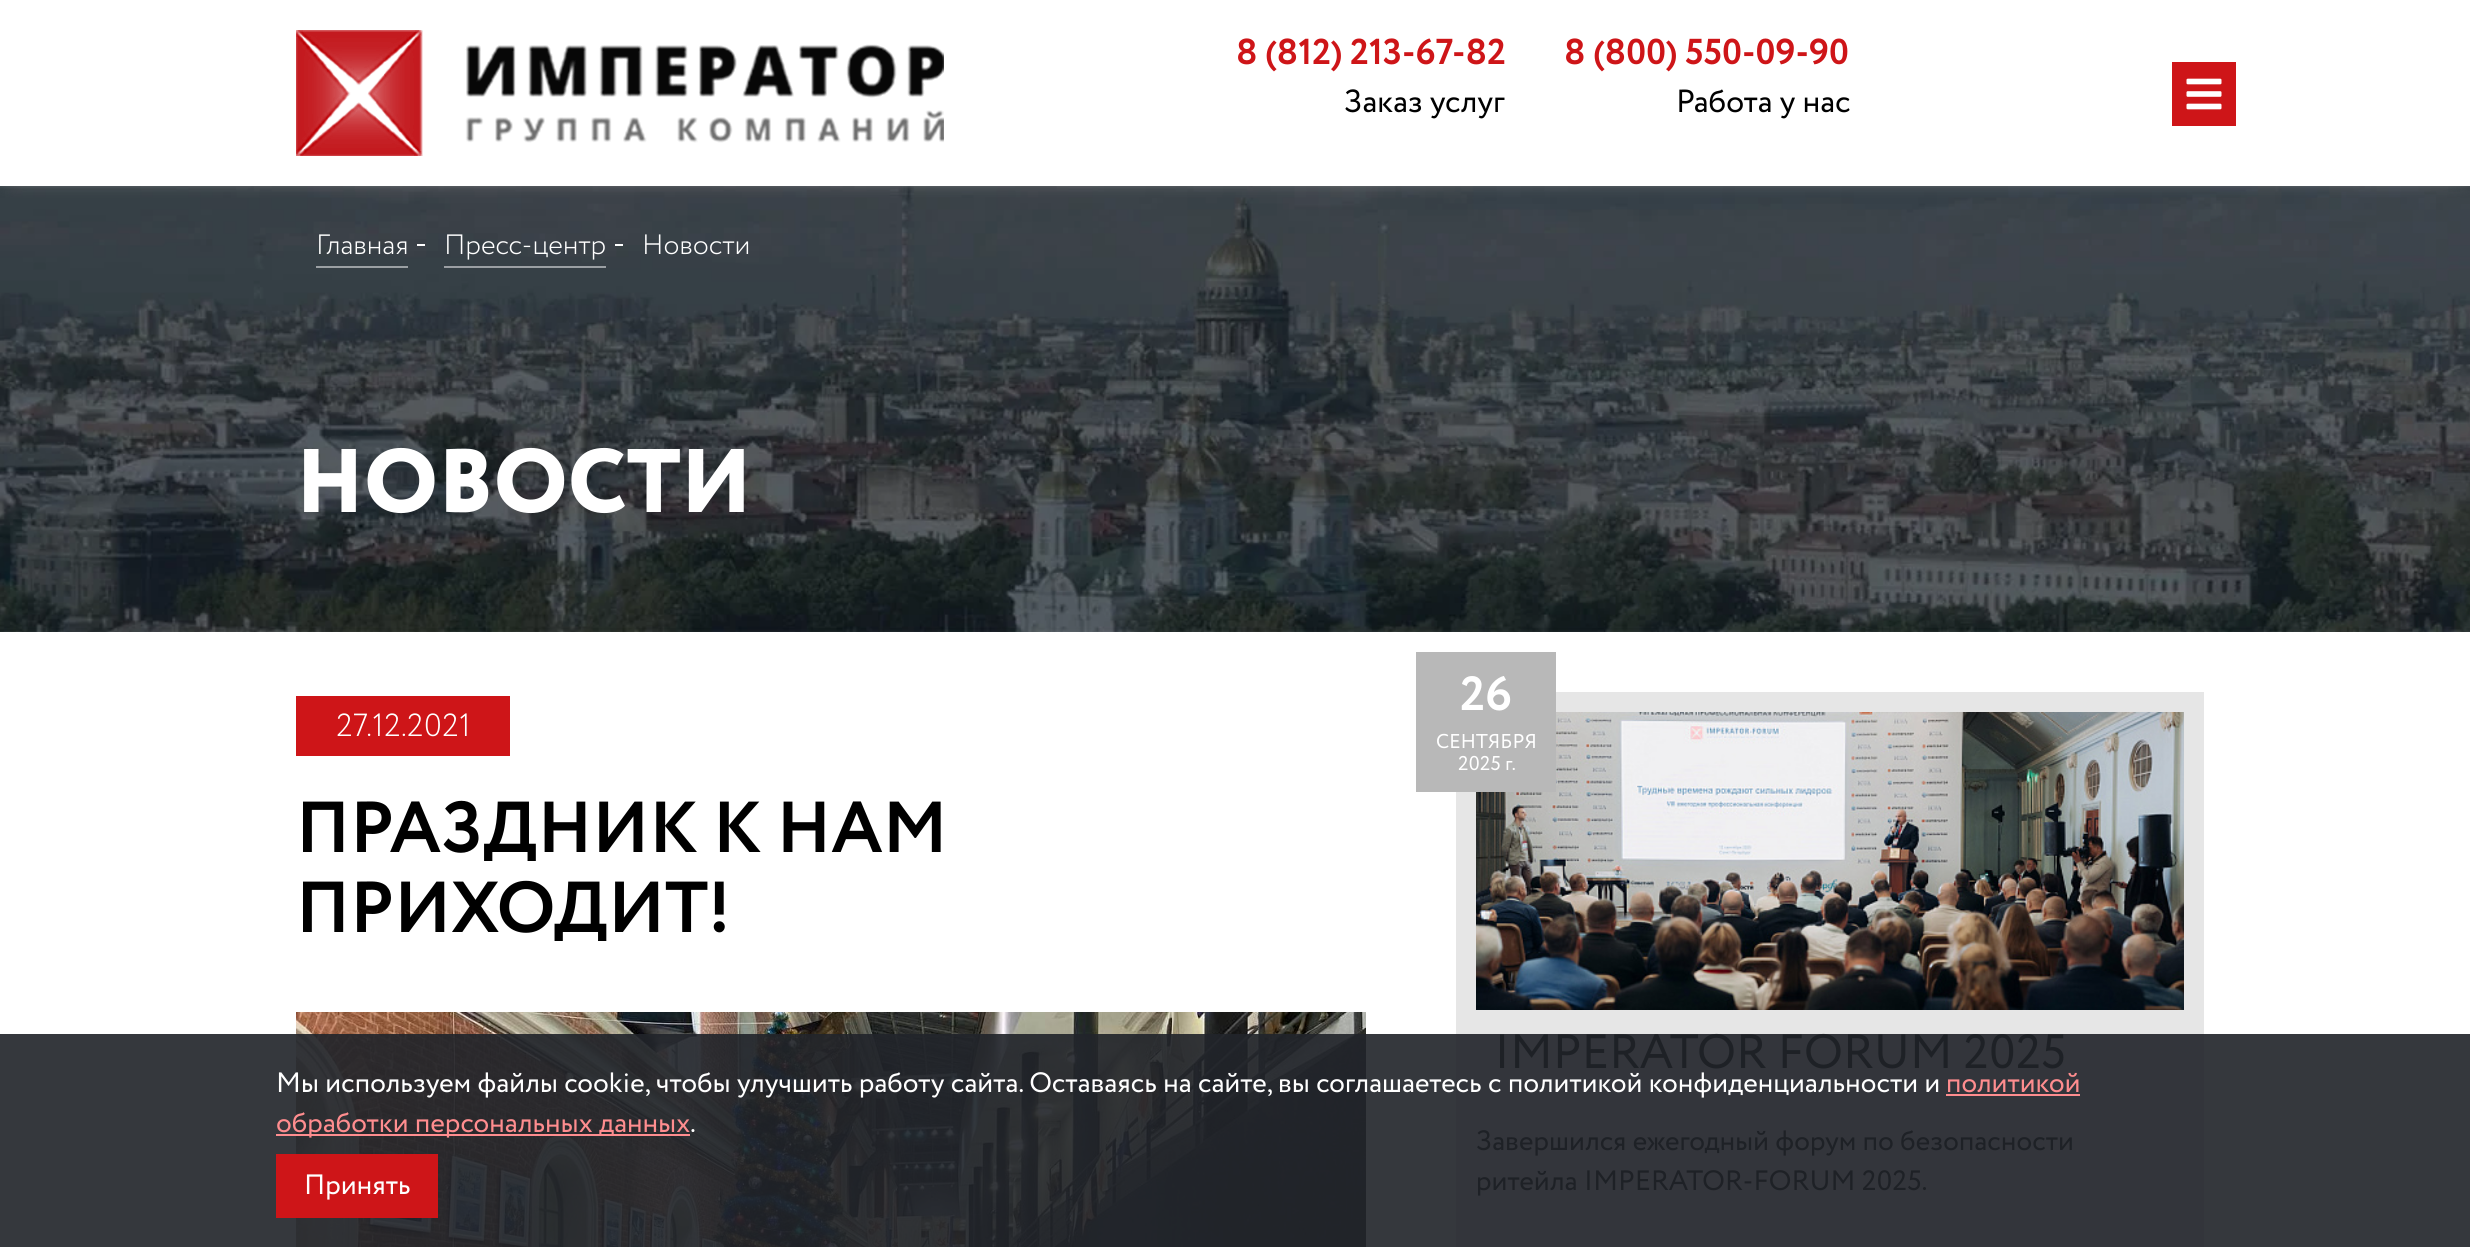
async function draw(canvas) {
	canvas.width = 2470;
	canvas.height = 1247;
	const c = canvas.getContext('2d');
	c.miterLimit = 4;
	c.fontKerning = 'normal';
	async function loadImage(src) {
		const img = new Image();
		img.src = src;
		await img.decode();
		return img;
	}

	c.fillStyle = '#fff';
	c.fillRect(0, 0, 2470, 1247);
	c.fillStyle = '#35383d';
	c.fillRect(0, 1034, 2470, 213);
	c.drawImage(await loadImage('img7.png'), 0, 186, 2470, 446);
	c.save();
	c.beginPath();
	c.rect(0, 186, 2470, 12);
	c.clip();
	c.fillStyle = '#808080';
	c.filter = 'blur(9px)';
	c.beginPath();
	c.rect(6, 6, 2458, 174);
	c.fill();
	c.filter = 'none';
	c.restore();
	c.drawImage(await loadImage('img1.png'), 296, 30, 648, 126);
	c.drawImage(await loadImage('img2.png'), 1238, 38, 267, 34);
	c.drawImage(await loadImage('img3.png'), 1345, 89, 160, 30);
	c.drawImage(await loadImage('img4.png'), 1566, 38, 282, 34);
	c.drawImage(await loadImage('img5.png'), 1679, 89, 171, 30);
	c.fillStyle = '#ce1518';
	c.fillRect(2172, 62, 64, 64);
	c.drawImage(await loadImage('img6.png'), 2186, 78, 36, 32);
	c.drawImage(await loadImage('img8.png'), 319, 234, 88, 21);
	c.fillStyle = '#fff';
	c.fillRect(417, 244, 8, 2);
	c.fillStyle = '#9ba0a3';
	c.fillRect(316, 266, 92, 2);
	c.drawImage(await loadImage('img9.png'), 447, 234, 158, 26);
	c.fillStyle = '#fff';
	c.fillRect(615, 244, 8, 2);
	c.fillStyle = '#9b9fa3';
	c.fillRect(444, 266, 162, 2);
	c.drawImage(await loadImage('img10.png'), 645, 234, 104, 21);
	c.drawImage(await loadImage('img11.png'), 304, 447, 440, 67);
	c.fillStyle = '#ce1518';
	c.fillRect(296, 696, 214, 60);
	c.drawImage(await loadImage('img12.png'), 337, 713, 130, 24);
	c.drawImage(await loadImage('img13.png'), 303, 800, 638, 61);
	c.drawImage(await loadImage('img14.png'), 303, 880, 422, 61);
	c.drawImage(await loadImage('img15.png'), 296, 1012, 1070, 235);
	c.fillStyle = '#e6e6e6';
	c.fillRect(1456, 692, 748, 342);
	c.fillStyle = '#33353b';
	c.fillRect(1456, 1034, 748, 213);
	c.drawImage(await loadImage('img19.png'), 1476, 712, 708, 298);
	c.fillStyle = '#b8b8b8';
	c.fillRect(1416, 652, 140, 140);
	c.drawImage(await loadImage('img16.png'), 1461, 676, 50, 35);
	c.drawImage(await loadImage('img17.png'), 1437, 733, 98, 16);
	c.drawImage(await loadImage('img18.png'), 1458, 755, 57, 16);
	c.drawImage(await loadImage('img20.png'), 1500, 1033, 564, 36);
	c.drawImage(await loadImage('img21.png'), 1477, 1130, 595, 26);
	c.drawImage(await loadImage('img22.png'), 1478, 1170, 448, 26);
	c.drawImage(await loadImage('img23.png'), 278, 1072, 1661, 26);
	c.drawImage(await loadImage('img24.png'), 1948, 1072, 131, 21);
	c.fillStyle = '#ff8d8f';
	c.fillRect(1946, 1094, 134, 2);
	c.fillRect(276, 1134, 414, 2);
	c.drawImage(await loadImage('img25.png'), 277, 1112, 413, 26);
	c.drawImage(await loadImage('img26.png'), 691, 1129, 4, 3);
	c.fillStyle = '#ce1518';
	c.fillRect(276, 1154, 162, 64);
	c.drawImage(await loadImage('img27.png'), 306, 1174, 104, 26);
}

draw(document.querySelector('canvas'));
